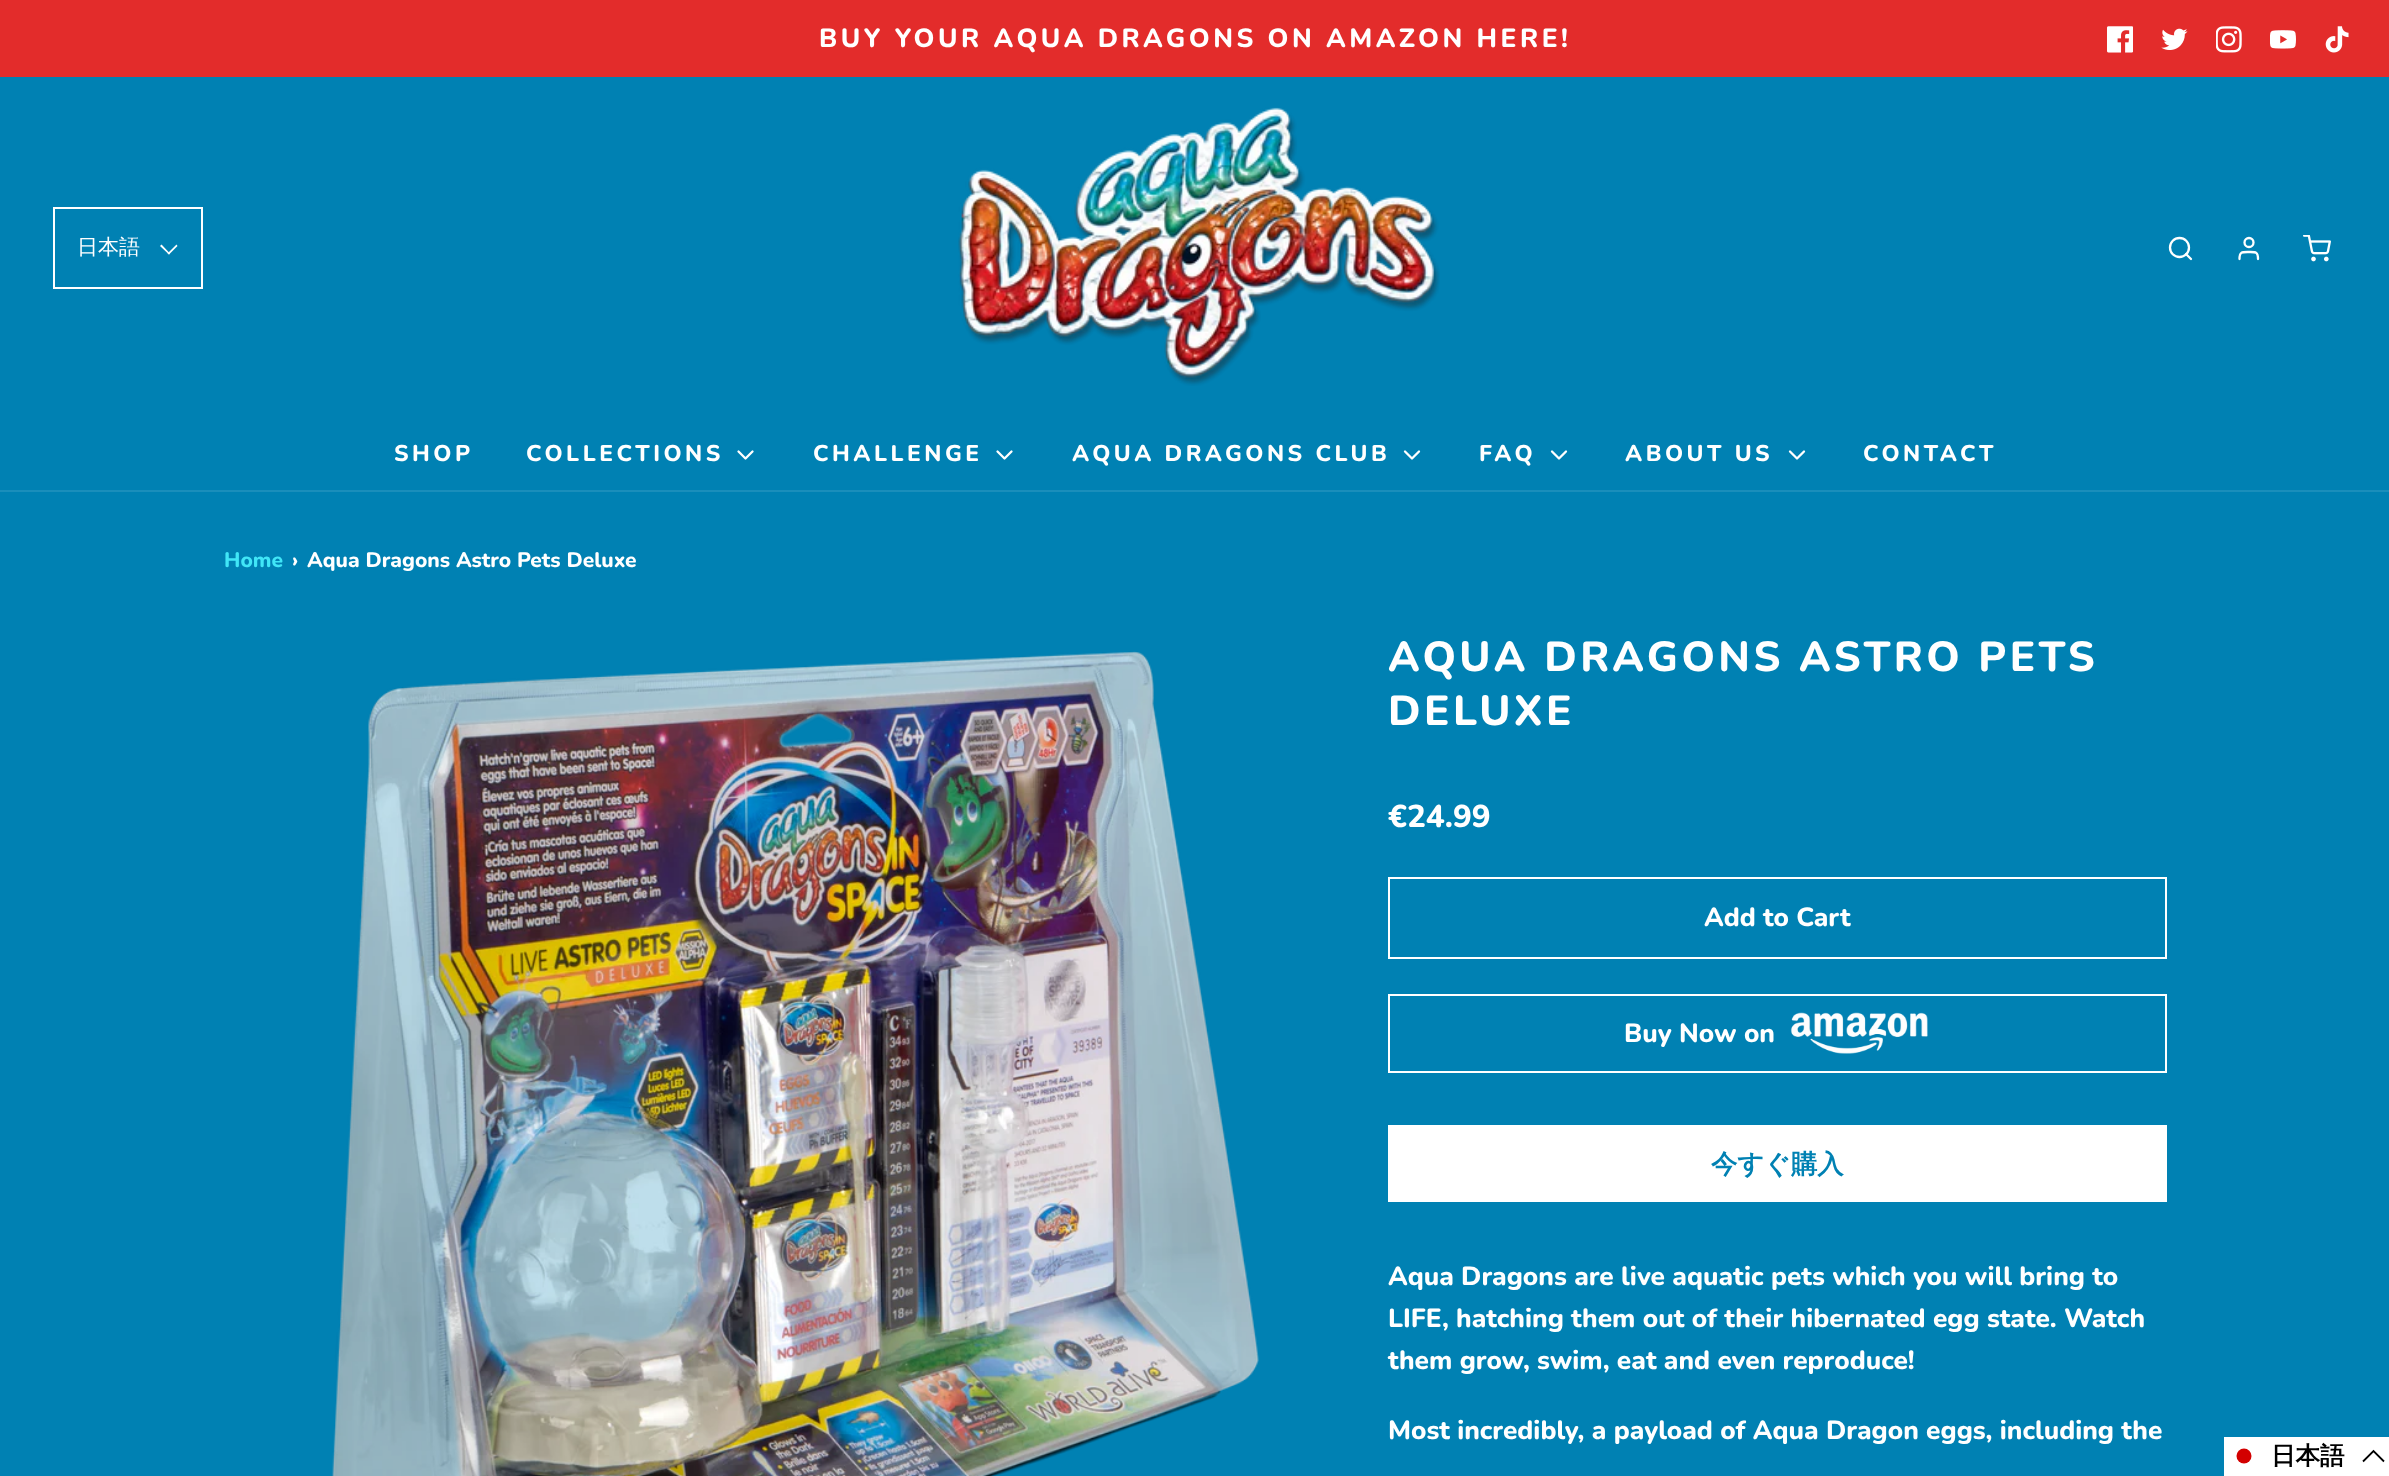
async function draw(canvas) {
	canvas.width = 2389;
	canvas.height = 1476;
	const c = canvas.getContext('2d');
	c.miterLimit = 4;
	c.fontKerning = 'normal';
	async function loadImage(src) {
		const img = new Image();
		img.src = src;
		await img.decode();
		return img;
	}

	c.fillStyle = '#0081b3';
	c.fillRect(0, 0, 2389, 1476);
	c.fillStyle = '#e32c2b';
	c.fillRect(0, 0, 2389, 77);
	c.letterSpacing = '3.5px';
	c.font = '800 26.25px Nunito';
	c.fillStyle = '#fff';
	c.fillText('BUY YOUR AQUA DRAGONS ON AMAZON HERE!', 819, 47);
	c.drawImage(await loadImage('img1.png'), 2107, 26, 26, 27);
	c.drawImage(await loadImage('img2.png'), 2161, 28, 27, 22);
	c.drawImage(await loadImage('img3.png'), 2216, 26, 26, 27);
	c.drawImage(await loadImage('img4.png'), 2270, 30, 26, 19);
	c.drawImage(await loadImage('img5.png'), 2325, 26, 24, 27);
	c.fillStyle = '#1a8ebb';
	c.fillRect(0, 490, 2389, 2);
	c.strokeStyle = '#fff';
	c.lineWidth = 2;
	c.strokeRect(54, 208, 148, 80);
	c.letterSpacing = '0px';
	c.font = '500 21px WenQuanYi Zen Hei';
	c.fillStyle = '#fff';
	c.fillText('日本語', 77, 254);
	c.beginPath();
	c.moveTo(176.5, 244.5);
	c.lineTo(177.5, 246);
	c.lineTo(169, 254.5);
	c.lineTo(167.5, 253.5);
	c.closePath();
	c.fill();
	c.beginPath();
	c.moveTo(161.5, 244.5);
	c.lineTo(170, 253.5);
	c.lineTo(169, 254.5);
	c.lineTo(160, 246);
	c.closePath();
	c.fill();
	c.drawImage(await loadImage('img6.png'), 958, 107, 482, 279);
	c.beginPath();
	c.arc(2179.5, 247.5, 9.5, 0, 2 * Math.PI);
	c.lineWidth = 2.3;
	c.stroke();
	c.beginPath();
	c.moveTo(2191, 259);
	c.lineTo(2186, 254);
	c.lineCap = 'round';
	c.lineJoin = 'round';
	c.stroke();
	c.beginPath();
	c.moveTo(2258, 259);
	c.bezierCurveTo(2258, 251.5, 2255.5, 252, 2249, 252);
	c.bezierCurveTo(2242, 252, 2239.5, 251.5, 2239.5, 259);
	c.stroke();
	c.beginPath();
	c.arc(2249, 242.5, 4.5, 0, 2 * Math.PI);
	c.stroke();
	c.drawImage(await loadImage('img7.png'), 2303, 235, 28, 27);
	c.letterSpacing = '3.5px';
	c.font = '800 22.75px Nunito';
	c.fillText('SHOP', 394, 461);
	c.fillText('COLLECTIONS', 526, 461);
	c.beginPath();
	c.moveTo(738.5, 451.5);
	c.lineTo(745.5, 458.5);
	c.lineTo(752.5, 451.5);
	c.stroke();
	c.fillText('CHALLENGE', 813, 461);
	c.beginPath();
	c.moveTo(997.5, 451.5);
	c.lineTo(1004.5, 458.5);
	c.lineTo(1011.5, 451.5);
	c.stroke();
	c.fillText('AQUA DRAGONS CLUB', 1072, 461);
	c.beginPath();
	c.moveTo(1405, 451.5);
	c.lineTo(1412, 458.5);
	c.lineTo(1419, 451.5);
	c.stroke();
	c.fillText('FAQ', 1479, 461);
	c.beginPath();
	c.moveTo(1552, 451.5);
	c.lineTo(1559, 458.5);
	c.lineTo(1566, 451.5);
	c.stroke();
	c.fillText('ABOUT US', 1625, 461);
	c.beginPath();
	c.moveTo(1790, 451.5);
	c.lineTo(1797, 458.5);
	c.lineTo(1804, 451.5);
	c.stroke();
	c.fillText('CONTACT', 1863, 461);
	c.letterSpacing = '0px';
	c.font = '800 21px Nunito';
	c.fillStyle = '#40e6f7';
	c.fillText('Home', 224, 567);
	c.fillStyle = '#fff';
	c.fillText('›', 292, 567);
	c.fillText('Aqua Dragons Astro Pets Deluxe', 307, 567);
	c.drawImage(await loadImage('img8.png'), 332, 651, 927, 825);
	c.letterSpacing = '3.5px';
	c.font = '800 42px Nunito';
	c.fillText('AQUA DRAGONS ASTRO PETS', 1388, 671);
	c.fillText('DELUXE', 1388, 725);
	c.letterSpacing = '0px';
	c.font = '800 31.5px Nunito';
	c.fillText('€24.99', 1388, 827);
	c.lineWidth = 2;
	c.lineJoin = 'miter';
	c.strokeRect(1389, 878, 777, 80);
	c.font = '800 26.25px Nunito';
	c.fillText('Add to Cart', 1704, 926);
	c.strokeRect(1389, 995, 777, 77);
	c.fillText('Buy Now on', 1624, 1042);
	c.drawImage(await loadImage('img9.png'), 1790, 1012, 138, 42);
	c.fillRect(1388, 1125, 779, 77);
	c.font = 'bold 26.25px WenQuanYi Zen Hei';
	c.fillStyle = '#0081b3';
	c.fillText('今すぐ購入', 1711, 1173);
	c.font = '800 26.25px Nunito';
	c.fillStyle = '#fff';
	for (const [text, x, y] of [
		['Aqua Dragons are live aquatic pets which you will bring to', 1388, 1285],
		['LIFE, hatching them out of their hibernated egg state. Watch', 1388, 1327],
		['them grow, swim, eat and even reproduce!', 1388, 1369],
		['Most incredibly, a payload of Aqua Dragon eggs, including the', 1388, 1439],
	]) {
		c.fillText(text, x, y);
	}
	c.fillRect(2224, 1437, 165, 39);
	c.fillStyle = '#d30000';
	c.beginPath();
	c.arc(2244, 1456, 7.5, 0, 2 * Math.PI);
	c.fill();
	c.font = 'bold 24.5px WenQuanYi Zen Hei';
	c.fillStyle = '#000';
	c.fillText('日本語', 2271, 1464);
	c.beginPath();
	c.moveTo(2384, 1461.5);
	c.lineTo(2373.5, 1451);
	c.lineTo(2363, 1461.5);
	c.strokeStyle = '#000';
	c.lineWidth = 1.8;
	c.lineCap = 'butt';
	c.stroke();
}

draw(document.querySelector('canvas'));
